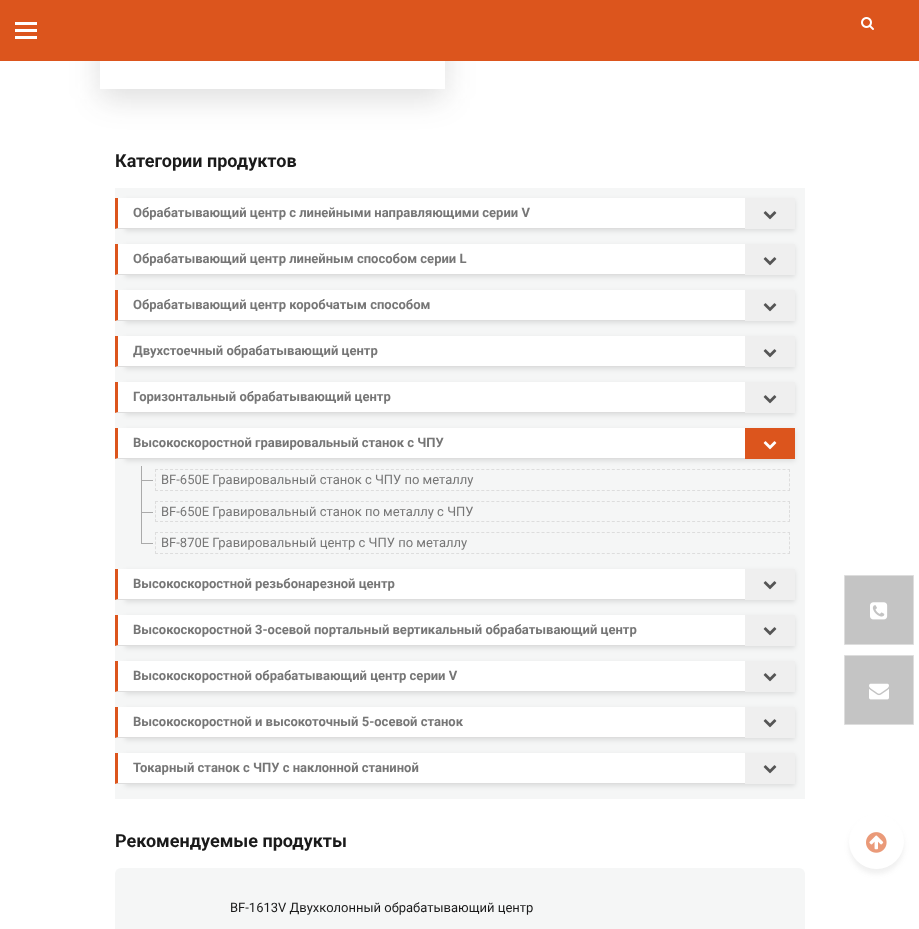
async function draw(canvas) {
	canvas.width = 919;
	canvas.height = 929;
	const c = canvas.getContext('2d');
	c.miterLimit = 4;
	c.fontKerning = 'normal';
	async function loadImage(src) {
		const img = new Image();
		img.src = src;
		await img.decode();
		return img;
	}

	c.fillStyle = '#fff';
	c.fillRect(0, 0, 919, 929);
	c.fillStyle = '#32323229';
	c.filter = 'blur(15px)';
	c.beginPath();
	c.roundRect(100, -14, 345, 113, 6);
	c.fill();
	c.filter = 'none';
	for (const [x, y, w, h, color] of [
		[0, 0, 919, 61, '#dc551d'],
		[15, 22, 22, 3, '#fff'],
		[15, 29, 22, 3, '#fff'],
		[15, 36, 22, 3, '#fff'],
	]) {
		c.fillStyle = color;
		c.fillRect(x, y, w, h);
	}
	c.drawImage(await loadImage('img1.png'), 861, 17, 13, 13);
	c.fillRect(100, 61, 345, 28);
	c.font = 'bold 18px Roboto';
	c.fillStyle = '#1a1a1a';
	c.fillText('Категории продуктов', 115, 167);
	c.fillStyle = '#f5f6f6';
	c.fillRect(115, 188, 690, 611);
	c.fillStyle = '#0000001a';
	c.filter = 'blur(2.5px)';
	c.beginPath();
	c.rect(125, 200, 670, 31);
	c.fill();
	c.filter = 'none';
	c.fillStyle = '#fff';
	c.fillRect(115, 198, 630, 31);
	c.fillStyle = '#ddd';
	c.beginPath();
	c.moveTo(755, 229);
	c.lineTo(115, 229);
	c.lineTo(118, 228);
	c.lineTo(755, 228);
	c.closePath();
	c.fill();
	c.fillStyle = '#dc551d';
	c.beginPath();
	c.moveTo(115, 229);
	c.lineTo(115, 198);
	c.lineTo(118, 198);
	c.lineTo(118, 228);
	c.closePath();
	c.fill();
	c.font = 'bold 13px Roboto';
	c.fillStyle = '#767676';
	c.fillText('Обрабатывающий центр с линейными направляющими серии V', 133, 217);
	c.fillStyle = '#efefef';
	c.fillRect(745, 198, 50, 31);
	c.drawImage(await loadImage('img2.png'), 763, 211, 14, 9);
	c.fillStyle = '#0000001a';
	c.filter = 'blur(2.5px)';
	c.beginPath();
	c.rect(125, 246, 670, 31);
	c.fill();
	c.filter = 'none';
	c.fillStyle = '#fff';
	c.fillRect(115, 244, 630, 31);
	c.fillStyle = '#ddd';
	c.beginPath();
	c.moveTo(755, 275);
	c.lineTo(115, 275);
	c.lineTo(118, 274);
	c.lineTo(755, 274);
	c.closePath();
	c.fill();
	c.fillStyle = '#dc551d';
	c.beginPath();
	c.moveTo(115, 275);
	c.lineTo(115, 244);
	c.lineTo(118, 244);
	c.lineTo(118, 274);
	c.closePath();
	c.fill();
	c.fillStyle = '#767676';
	c.fillText('Обрабатывающий центр линейным способом серии L', 133, 263);
	c.fillStyle = '#efefef';
	c.fillRect(745, 244, 50, 31);
	c.drawImage(await loadImage('img2.png'), 763, 257, 14, 9);
	c.fillStyle = '#0000001a';
	c.filter = 'blur(2.5px)';
	c.beginPath();
	c.rect(125, 292, 670, 31);
	c.fill();
	c.filter = 'none';
	c.fillStyle = '#fff';
	c.fillRect(115, 290, 630, 31);
	c.fillStyle = '#ddd';
	c.beginPath();
	c.moveTo(755, 321);
	c.lineTo(115, 321);
	c.lineTo(118, 320);
	c.lineTo(755, 320);
	c.closePath();
	c.fill();
	c.fillStyle = '#dc551d';
	c.beginPath();
	c.moveTo(115, 321);
	c.lineTo(115, 290);
	c.lineTo(118, 290);
	c.lineTo(118, 320);
	c.closePath();
	c.fill();
	c.fillStyle = '#767676';
	c.fillText('Обрабатывающий центр коробчатым способом', 133, 309);
	c.fillStyle = '#efefef';
	c.fillRect(745, 290, 50, 31);
	c.drawImage(await loadImage('img2.png'), 763, 303, 14, 9);
	c.fillStyle = '#0000001a';
	c.filter = 'blur(2.5px)';
	c.beginPath();
	c.rect(125, 338, 670, 31);
	c.fill();
	c.filter = 'none';
	c.fillStyle = '#fff';
	c.fillRect(115, 336, 630, 31);
	c.fillStyle = '#ddd';
	c.beginPath();
	c.moveTo(755, 367);
	c.lineTo(115, 367);
	c.lineTo(118, 366);
	c.lineTo(755, 366);
	c.closePath();
	c.fill();
	c.fillStyle = '#dc551d';
	c.beginPath();
	c.moveTo(115, 367);
	c.lineTo(115, 336);
	c.lineTo(118, 336);
	c.lineTo(118, 366);
	c.closePath();
	c.fill();
	c.fillStyle = '#767676';
	c.fillText('Двухстоечный обрабатывающий центр', 133, 355);
	c.fillStyle = '#efefef';
	c.fillRect(745, 336, 50, 31);
	c.drawImage(await loadImage('img2.png'), 763, 349, 14, 9);
	c.fillStyle = '#0000001a';
	c.filter = 'blur(2.5px)';
	c.beginPath();
	c.rect(125, 384, 670, 31);
	c.fill();
	c.filter = 'none';
	c.fillStyle = '#fff';
	c.fillRect(115, 382, 630, 31);
	c.fillStyle = '#ddd';
	c.beginPath();
	c.moveTo(755, 413);
	c.lineTo(115, 413);
	c.lineTo(118, 412);
	c.lineTo(755, 412);
	c.closePath();
	c.fill();
	c.fillStyle = '#dc551d';
	c.beginPath();
	c.moveTo(115, 413);
	c.lineTo(115, 382);
	c.lineTo(118, 382);
	c.lineTo(118, 412);
	c.closePath();
	c.fill();
	c.fillStyle = '#767676';
	c.fillText('Горизонтальный обрабатывающий центр', 133, 401);
	c.fillStyle = '#efefef';
	c.fillRect(745, 382, 50, 31);
	c.drawImage(await loadImage('img2.png'), 763, 395, 14, 9);
	c.fillStyle = '#0000001a';
	c.filter = 'blur(2.5px)';
	c.beginPath();
	c.rect(125, 430, 670, 31);
	c.fill();
	c.filter = 'none';
	c.fillStyle = '#fff';
	c.fillRect(115, 428, 630, 31);
	c.fillStyle = '#ddd';
	c.beginPath();
	c.moveTo(755, 459);
	c.lineTo(115, 459);
	c.lineTo(118, 458);
	c.lineTo(755, 458);
	c.closePath();
	c.fill();
	c.fillStyle = '#dc551d';
	c.beginPath();
	c.moveTo(115, 459);
	c.lineTo(115, 428);
	c.lineTo(118, 428);
	c.lineTo(118, 458);
	c.closePath();
	c.fill();
	c.fillStyle = '#767676';
	c.fillText('Высокоскоростной гравировальный станок с ЧПУ', 133, 447);
	c.fillStyle = '#dc551d';
	c.fillRect(745, 428, 50, 31);
	c.drawImage(await loadImage('img3.png'), 763, 441, 14, 9);
	c.beginPath();
	c.moveTo(155, 469.5);
	c.lineTo(790, 469.5);
	c.strokeStyle = '#ddd';
	c.setLineDash([3, 2.02]);
	c.stroke();
	c.beginPath();
	c.moveTo(789.5, 469);
	c.lineTo(789.5, 491);
	c.setLineDash([3, 1.75]);
	c.stroke();
	c.beginPath();
	c.moveTo(155, 490.5);
	c.lineTo(790, 490.5);
	c.setLineDash([3, 2.02]);
	c.stroke();
	c.beginPath();
	c.moveTo(155.5, 469);
	c.lineTo(155.5, 491);
	c.setLineDash([3, 1.75]);
	c.stroke();
	c.fillStyle = '#aaa';
	c.fillRect(141, 466, 1, 77);
	c.font = '13px Roboto';
	c.fillStyle = '#767676';
	c.fillText('BF-650E Гравировальный станок с ЧПУ по металлу', 161, 484);
	c.fillStyle = '#aaa';
	c.fillRect(141, 480, 12, 1);
	c.beginPath();
	c.moveTo(155, 501.5);
	c.lineTo(790, 501.5);
	c.setLineDash([3, 2.02]);
	c.stroke();
	c.beginPath();
	c.moveTo(789.5, 501);
	c.lineTo(789.5, 522);
	c.setLineDash([3, 1.5]);
	c.stroke();
	c.beginPath();
	c.moveTo(155, 521.5);
	c.lineTo(790, 521.5);
	c.setLineDash([3, 2.02]);
	c.stroke();
	c.beginPath();
	c.moveTo(155.5, 501);
	c.lineTo(155.5, 522);
	c.setLineDash([3, 1.5]);
	c.stroke();
	c.fillRect(141, 512, 12, 1);
	c.fillStyle = '#767676';
	c.fillText('BF-650E Гравировальный станок по металлу с ЧПУ', 161, 516);
	c.beginPath();
	c.moveTo(155, 532.5);
	c.lineTo(790, 532.5);
	c.setLineDash([3, 2.02]);
	c.stroke();
	c.beginPath();
	c.moveTo(789.5, 532);
	c.lineTo(789.5, 554);
	c.setLineDash([3, 1.75]);
	c.stroke();
	c.beginPath();
	c.moveTo(155, 553.5);
	c.lineTo(790, 553.5);
	c.setLineDash([3, 2.02]);
	c.stroke();
	c.beginPath();
	c.moveTo(155.5, 532);
	c.lineTo(155.5, 554);
	c.setLineDash([3, 1.75]);
	c.stroke();
	c.fillStyle = '#aaa';
	c.fillRect(141, 543, 12, 1);
	c.fillStyle = '#767676';
	c.fillText('BF-870E Гравировальный центр с ЧПУ по металлу', 161, 547);
	c.fillStyle = '#0000001a';
	c.filter = 'blur(2.5px)';
	c.beginPath();
	c.rect(125, 571, 670, 31);
	c.fill();
	c.filter = 'none';
	c.fillStyle = '#fff';
	c.fillRect(115, 569, 630, 31);
	c.fillStyle = '#ddd';
	c.beginPath();
	c.moveTo(755, 600);
	c.lineTo(115, 600);
	c.lineTo(118, 599);
	c.lineTo(755, 599);
	c.closePath();
	c.fill();
	c.fillStyle = '#dc551d';
	c.beginPath();
	c.moveTo(115, 600);
	c.lineTo(115, 569);
	c.lineTo(118, 569);
	c.lineTo(118, 599);
	c.closePath();
	c.fill();
	c.font = 'bold 13px Roboto';
	c.fillStyle = '#767676';
	c.fillText('Высокоскоростной резьбонарезной центр', 133, 588);
	c.fillStyle = '#efefef';
	c.fillRect(745, 569, 50, 31);
	c.drawImage(await loadImage('img2.png'), 763, 581, 14, 9);
	c.fillStyle = '#0000001a';
	c.filter = 'blur(2.5px)';
	c.beginPath();
	c.rect(125, 617, 670, 31);
	c.fill();
	c.filter = 'none';
	c.fillStyle = '#fff';
	c.fillRect(115, 615, 630, 31);
	c.fillStyle = '#ddd';
	c.beginPath();
	c.moveTo(755, 646);
	c.lineTo(115, 646);
	c.lineTo(118, 645);
	c.lineTo(755, 645);
	c.closePath();
	c.fill();
	c.fillStyle = '#dc551d';
	c.beginPath();
	c.moveTo(115, 646);
	c.lineTo(115, 615);
	c.lineTo(118, 615);
	c.lineTo(118, 645);
	c.closePath();
	c.fill();
	c.fillStyle = '#767676';
	c.fillText('Высокоскоростной 3-осевой портальный вертикальный обрабатывающий центр', 133, 634);
	c.fillStyle = '#efefef';
	c.fillRect(745, 615, 50, 31);
	c.drawImage(await loadImage('img2.png'), 763, 627, 14, 9);
	c.fillStyle = '#0000001a';
	c.filter = 'blur(2.5px)';
	c.beginPath();
	c.rect(125, 663, 670, 31);
	c.fill();
	c.filter = 'none';
	c.fillStyle = '#fff';
	c.fillRect(115, 661, 630, 31);
	c.fillStyle = '#ddd';
	c.beginPath();
	c.moveTo(755, 692);
	c.lineTo(115, 692);
	c.lineTo(118, 691);
	c.lineTo(755, 691);
	c.closePath();
	c.fill();
	c.fillStyle = '#dc551d';
	c.beginPath();
	c.moveTo(115, 692);
	c.lineTo(115, 661);
	c.lineTo(118, 661);
	c.lineTo(118, 691);
	c.closePath();
	c.fill();
	c.fillStyle = '#767676';
	c.fillText('Высокоскоростной обрабатывающий центр серии V', 133, 680);
	c.fillStyle = '#efefef';
	c.fillRect(745, 661, 50, 31);
	c.drawImage(await loadImage('img2.png'), 763, 673, 14, 9);
	c.fillStyle = '#0000001a';
	c.filter = 'blur(2.5px)';
	c.beginPath();
	c.rect(125, 709, 670, 31);
	c.fill();
	c.filter = 'none';
	c.fillStyle = '#fff';
	c.fillRect(115, 707, 630, 31);
	c.fillStyle = '#ddd';
	c.beginPath();
	c.moveTo(755, 738);
	c.lineTo(115, 738);
	c.lineTo(118, 737);
	c.lineTo(755, 737);
	c.closePath();
	c.fill();
	c.fillStyle = '#dc551d';
	c.beginPath();
	c.moveTo(115, 738);
	c.lineTo(115, 707);
	c.lineTo(118, 707);
	c.lineTo(118, 737);
	c.closePath();
	c.fill();
	c.fillStyle = '#767676';
	c.fillText('Высокоскоростной и высокоточный 5-осевой станок', 133, 726);
	c.fillStyle = '#efefef';
	c.fillRect(745, 707, 50, 31);
	c.drawImage(await loadImage('img2.png'), 763, 719, 14, 9);
	c.fillStyle = '#0000001a';
	c.filter = 'blur(2.5px)';
	c.beginPath();
	c.rect(125, 755, 670, 31);
	c.fill();
	c.filter = 'none';
	c.fillStyle = '#fff';
	c.fillRect(115, 753, 630, 31);
	c.fillStyle = '#ddd';
	c.beginPath();
	c.moveTo(755, 784);
	c.lineTo(115, 784);
	c.lineTo(118, 783);
	c.lineTo(755, 783);
	c.closePath();
	c.fill();
	c.fillStyle = '#dc551d';
	c.beginPath();
	c.moveTo(115, 784);
	c.lineTo(115, 753);
	c.lineTo(118, 753);
	c.lineTo(118, 783);
	c.closePath();
	c.fill();
	c.fillStyle = '#767676';
	c.fillText('Токарный станок с ЧПУ с наклонной станиной', 133, 772);
	c.fillStyle = '#efefef';
	c.fillRect(745, 753, 50, 31);
	c.drawImage(await loadImage('img2.png'), 763, 765, 14, 9);
	c.font = 'bold 18px Roboto';
	c.fillStyle = '#1a1a1a';
	c.fillText('Рекомендуемые продукты', 115, 847);
	c.fillStyle = '#f5f6f6';
	c.beginPath();
	c.roundRect(115, 868, 690, 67, 6);
	c.fill();
	c.font = '13px Roboto';
	c.fillStyle = '#1a1a1a';
	c.fillText('BF-1613V Двухколонный обрабатывающий центр', 230, 912);
	c.fillStyle = '#c4c4c4';
	c.beginPath();
	c.rect(844.5, 575.5, 69, 69);
	c.fill();
	c.setLineDash([]);
	c.stroke();
	c.drawImage(await loadImage('img4.png'), 870, 602, 18, 18);
	c.beginPath();
	c.rect(844.5, 655.5, 69, 69);
	c.fill();
	c.stroke();
	c.drawImage(await loadImage('img5.png'), 869, 683, 20, 17);
	c.fillStyle = '#6868681a';
	c.filter = 'blur(2.5px)';
	c.beginPath();
	c.roundRect(849, 819, 55, 55, 27.5);
	c.fill();
	c.filter = 'none';
	c.fillStyle = '#fff';
	c.beginPath();
	c.arc(876.5, 841.5, 27.5, 0, 2 * Math.PI);
	c.fill();
	c.drawImage(await loadImage('img6.png'), 866, 832, 21, 21);
}

draw(document.querySelector('canvas'));
